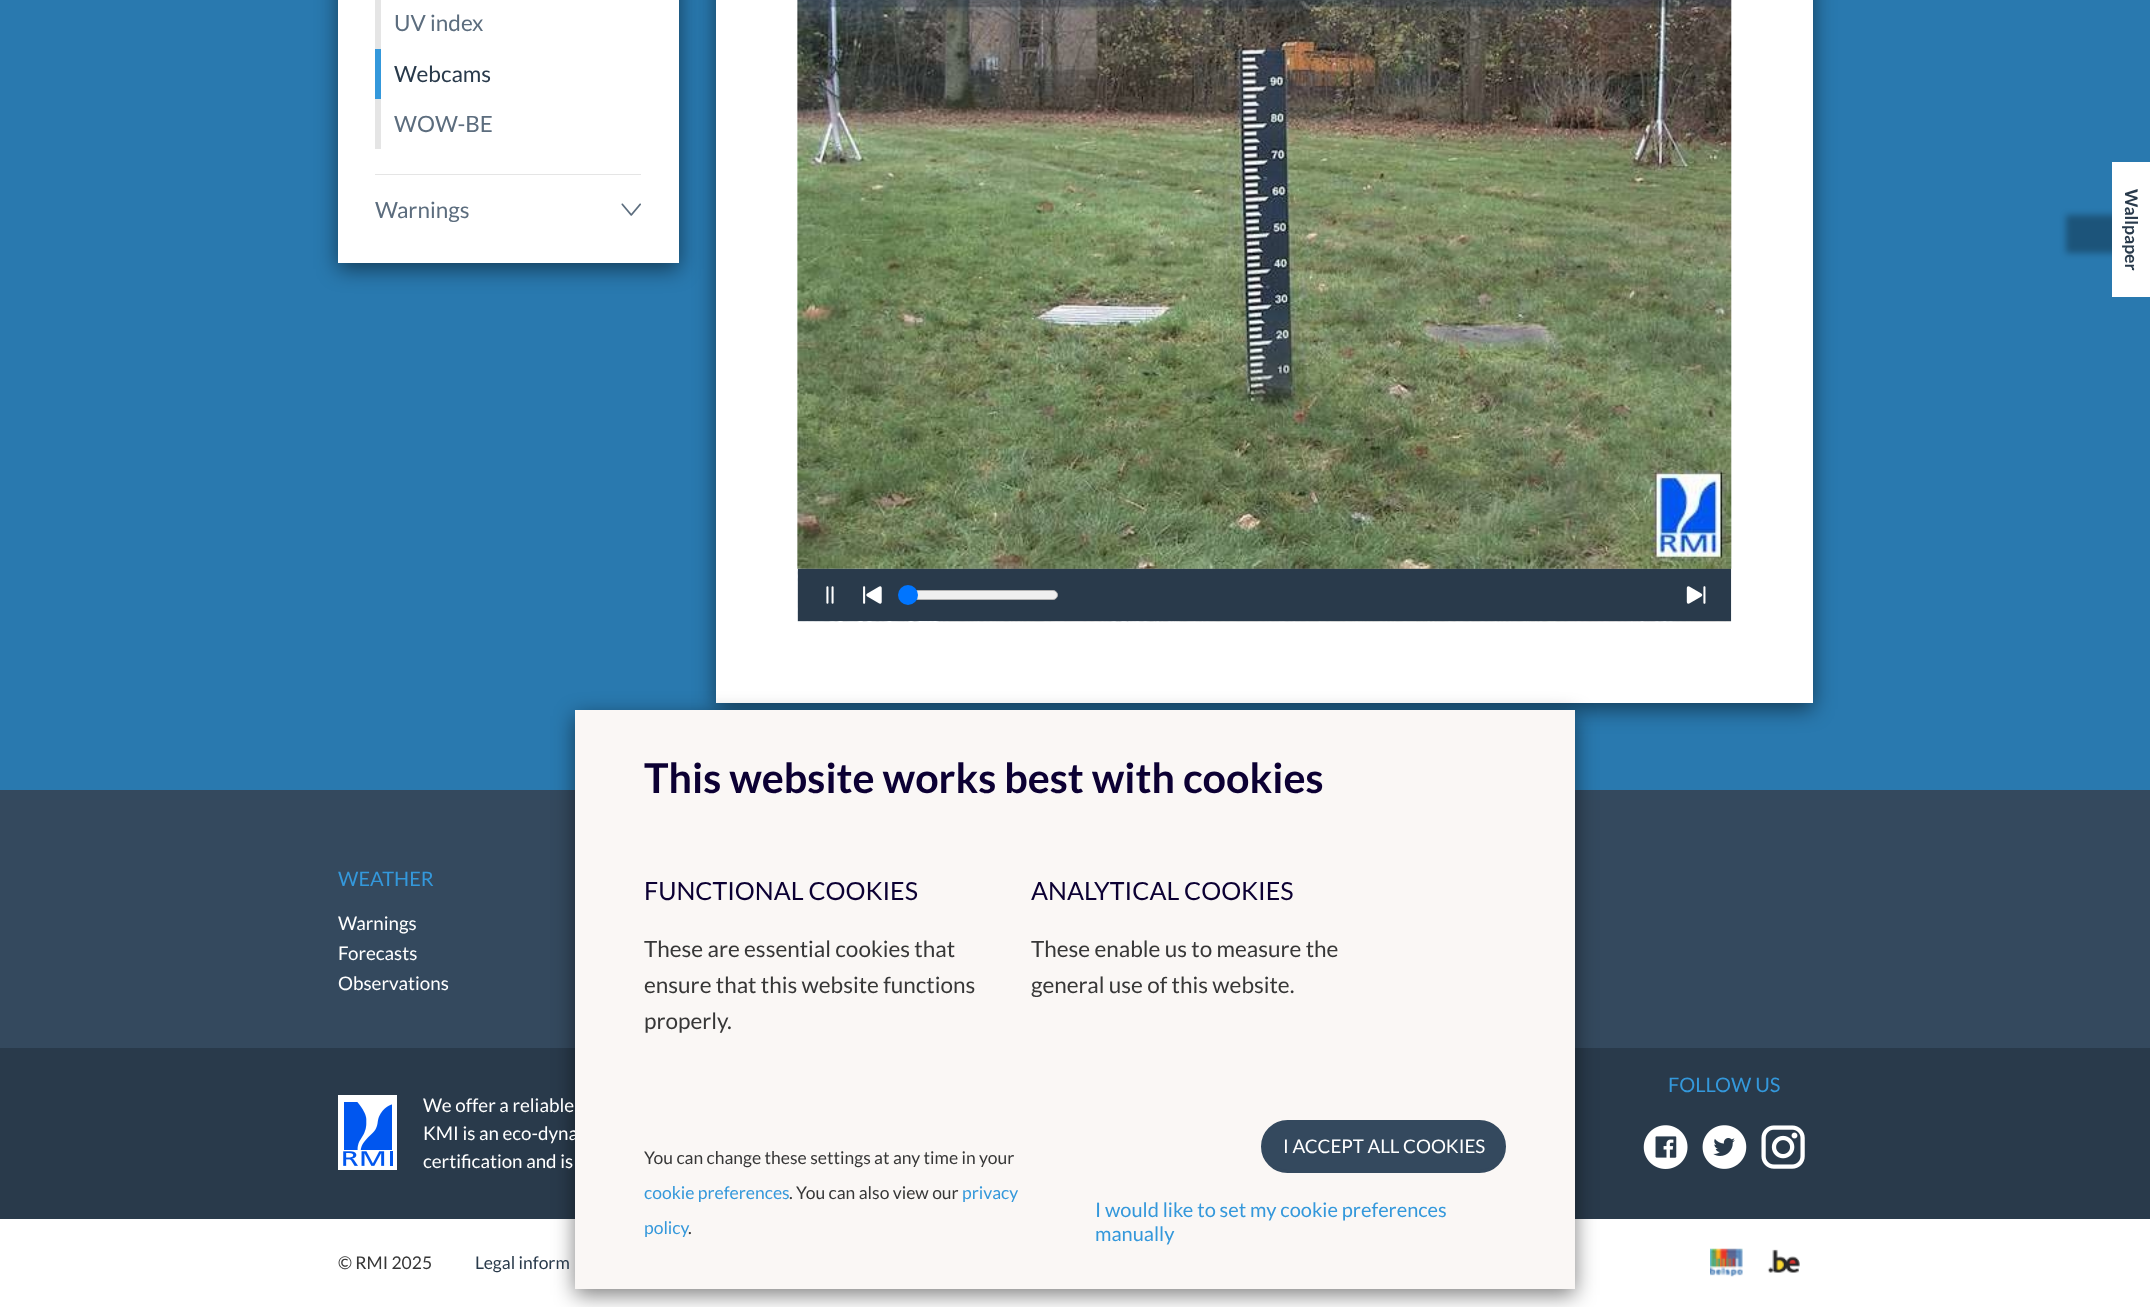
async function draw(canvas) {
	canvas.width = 2150;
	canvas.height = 1307;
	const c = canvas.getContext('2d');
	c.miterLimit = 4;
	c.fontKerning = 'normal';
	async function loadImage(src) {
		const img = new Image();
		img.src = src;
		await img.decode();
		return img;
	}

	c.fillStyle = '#fff';
	c.fillRect(0, 0, 2150, 1307);
	c.fillStyle = '#2979af';
	c.fillRect(0, 0, 2150, 790);
	c.fillStyle = '#00000080';
	c.filter = 'blur(10.5px)';
	c.beginPath();
	c.rect(338, -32, 341, 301);
	c.fill();
	c.filter = 'none';
	c.fillStyle = '#fff';
	c.fillRect(338, 0, 341, 263);
	c.fillStyle = '#e5e5e5';
	c.fillRect(375, 0, 6, 149);
	c.font = '22.5px Lato';
	c.fillStyle = '#5c6d7e';
	c.fillText('UV index', 394, 31);
	c.fillStyle = '#3498db';
	c.fillRect(375, 49, 6, 50);
	c.fillStyle = '#293a4b';
	c.fillText('Webcams', 394, 82);
	c.fillStyle = '#5c6d7e';
	c.fillText('WOW-BE', 394, 132);
	c.fillStyle = '#e5e5e5';
	c.fillRect(375, 174, 266, 1);
	c.fillStyle = '#5c6d7e';
	c.fillText('Warnings', 375, 218);
	c.drawImage(await loadImage('img1.png'), 621, 203, 20, 13);
	c.fillStyle = '#00000080';
	c.filter = 'blur(10.5px)';
	c.beginPath();
	c.rect(716, -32, 1097, 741);
	c.fill();
	c.filter = 'none';
	c.fillStyle = '#fff';
	c.fillRect(716, 0, 1097, 703);
	c.drawImage(await loadImage('img2.png'), 797, 0, 935, 569);
	c.drawImage(await loadImage('img3.png'), 797, 0, 935, 569);
	c.drawImage(await loadImage('img4.png'), 797, 568, 935, 54);
	c.fillStyle = '#293a4b';
	c.fillRect(798, 569, 933, 52);
	c.drawImage(await loadImage('img5.png'), 826, 586, 8, 18);
	c.drawImage(await loadImage('img6.png'), 863, 586, 19, 18);
	c.fillStyle = '#efefef';
	c.beginPath();
	c.roundRect(899.5, 590.5, 158, 9, 4.5);
	c.fill();
	c.strokeStyle = '#b2b2b2';
	c.stroke();
	c.fillStyle = '#0075ff';
	c.beginPath();
	c.arc(908, 595, 10, 0, 2 * Math.PI);
	c.fill();
	c.drawImage(await loadImage('img7.png'), 1686, 586, 20, 18);
	c.fillStyle = '#0000004d';
	c.filter = 'blur(3px)';
	c.beginPath();
	c.rect(2066, 215, 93, 38);
	c.fill();
	c.filter = 'none';
	c.fillStyle = '#fff';
	c.fillRect(2112, 162, 38, 135);
	c.font = 'bold 17.5px Lato';
	c.fillStyle = '#293a4b';
	c.save();
	c.translate(2125, 189);
	c.rotate(90 * Math.PI / 180);
	c.fillText('Wallpaper', 0, 0);
	c.restore();
	c.fillStyle = '#34495e';
	c.fillRect(0, 790, 2150, 258);
	c.fillStyle = '#293a4b';
	c.fillRect(0, 1048, 2150, 171);
	c.fillStyle = '#00000080';
	c.filter = 'blur(10.5px)';
	c.beginPath();
	c.rect(575, 716, 1000, 579);
	c.fill();
	c.filter = 'none';
	c.font = '18.75px Lato';
	c.fillStyle = '#fff';
	c.fillText('KMI is an eco-dyna', 423, 1140);
	c.fillStyle = '#faf7f5';
	c.fillRect(575, 710, 1000, 579);
	c.font = 'bold 41.25px Lato';
	c.fillStyle = '#0c0033';
	c.fillText('This website works best with cookies', 644, 793);
	c.font = '25px Lato';
	c.fillText('FUNCTIONAL COOKIES', 644, 900);
	c.font = '22.5px Lato';
	c.fillStyle = '#373737';
	for (const [text, x, y] of [
		['These are essential cookies that', 644, 957],
		['ensure that this website functions', 644, 993],
		['properly.', 644, 1029],
	]) {
		c.fillText(text, x, y);
	}
	c.font = '25px Lato';
	c.fillStyle = '#0c0033';
	c.fillText('ANALYTICAL COOKIES', 1031, 900);
	c.font = '22.5px Lato';
	c.fillStyle = '#373737';
	c.fillText('These enable us to measure the', 1031, 957);
	c.fillText('general use of this website.', 1031, 993);
	c.font = '17.5px Lato';
	c.fillText('You can change these settings at any time in your', 644, 1164);
	c.fillStyle = '#3498db';
	c.fillText('cookie preferences', 644, 1199);
	c.fillStyle = '#373737';
	c.fillText('. You can also view our', 789, 1199);
	c.fillStyle = '#3498db';
	c.fillText('privacy', 962, 1199);
	c.fillText('policy', 644, 1234);
	c.fillStyle = '#373737';
	c.fillText('.', 688, 1234);
	c.fillStyle = '#34495e';
	c.beginPath();
	c.roundRect(1262.5, 1121.5, 242, 50, 25);
	c.fill();
	c.strokeStyle = '#34495e';
	c.lineWidth = 3;
	c.stroke();
	c.font = '18.75px Lato';
	c.fillStyle = '#fff';
	c.fillText('I ACCEPT ALL COOKIES', 1283, 1153);
	c.font = '20px Lato';
	c.fillStyle = '#3498db';
	for (const [text, x, y] of [
		['I would like to set my cookie preferences', 1095, 1217],
		['manually', 1095, 1241],
		['WEATHER', 338, 886],
	]) {
		c.fillText(text, x, y);
	}
	c.font = '18.75px Lato';
	c.fillStyle = '#fff';
	for (const [text, x, y] of [
		['Warnings', 338, 930],
		['Forecasts', 338, 960],
		['Observations', 338, 990],
	]) {
		c.fillText(text, x, y);
	}
	c.font = '20px Lato';
	c.fillStyle = '#3498db';
	c.fillText('FOLLOW US', 1668, 1092);
	c.drawImage(await loadImage('img8.png'), 1643, 1125, 45, 44);
	c.drawImage(await loadImage('img9.png'), 1702, 1125, 45, 44);
	c.drawImage(await loadImage('img10.png'), 1761, 1125, 44, 44);
	c.drawImage(await loadImage('img11.png'), 338, 1095, 59, 75);
	c.font = '18.75px Lato';
	c.fillStyle = '#fff';
	c.fillText('We offer a reliable', 423, 1112);
	c.fillText('certification and is', 423, 1168);
	c.font = '17.5px Lato';
	c.fillStyle = '#373737';
	c.fillText('© RMI 2025', 338, 1269);
	c.fillStyle = '#293a4b';
	c.fillText('Legal inform', 475, 1269);
	c.drawImage(await loadImage('img12.png'), 1710, 1248, 33, 29);
	c.drawImage(await loadImage('img13.png'), 1767, 1249, 33, 24);
}

draw(document.querySelector('canvas'));
